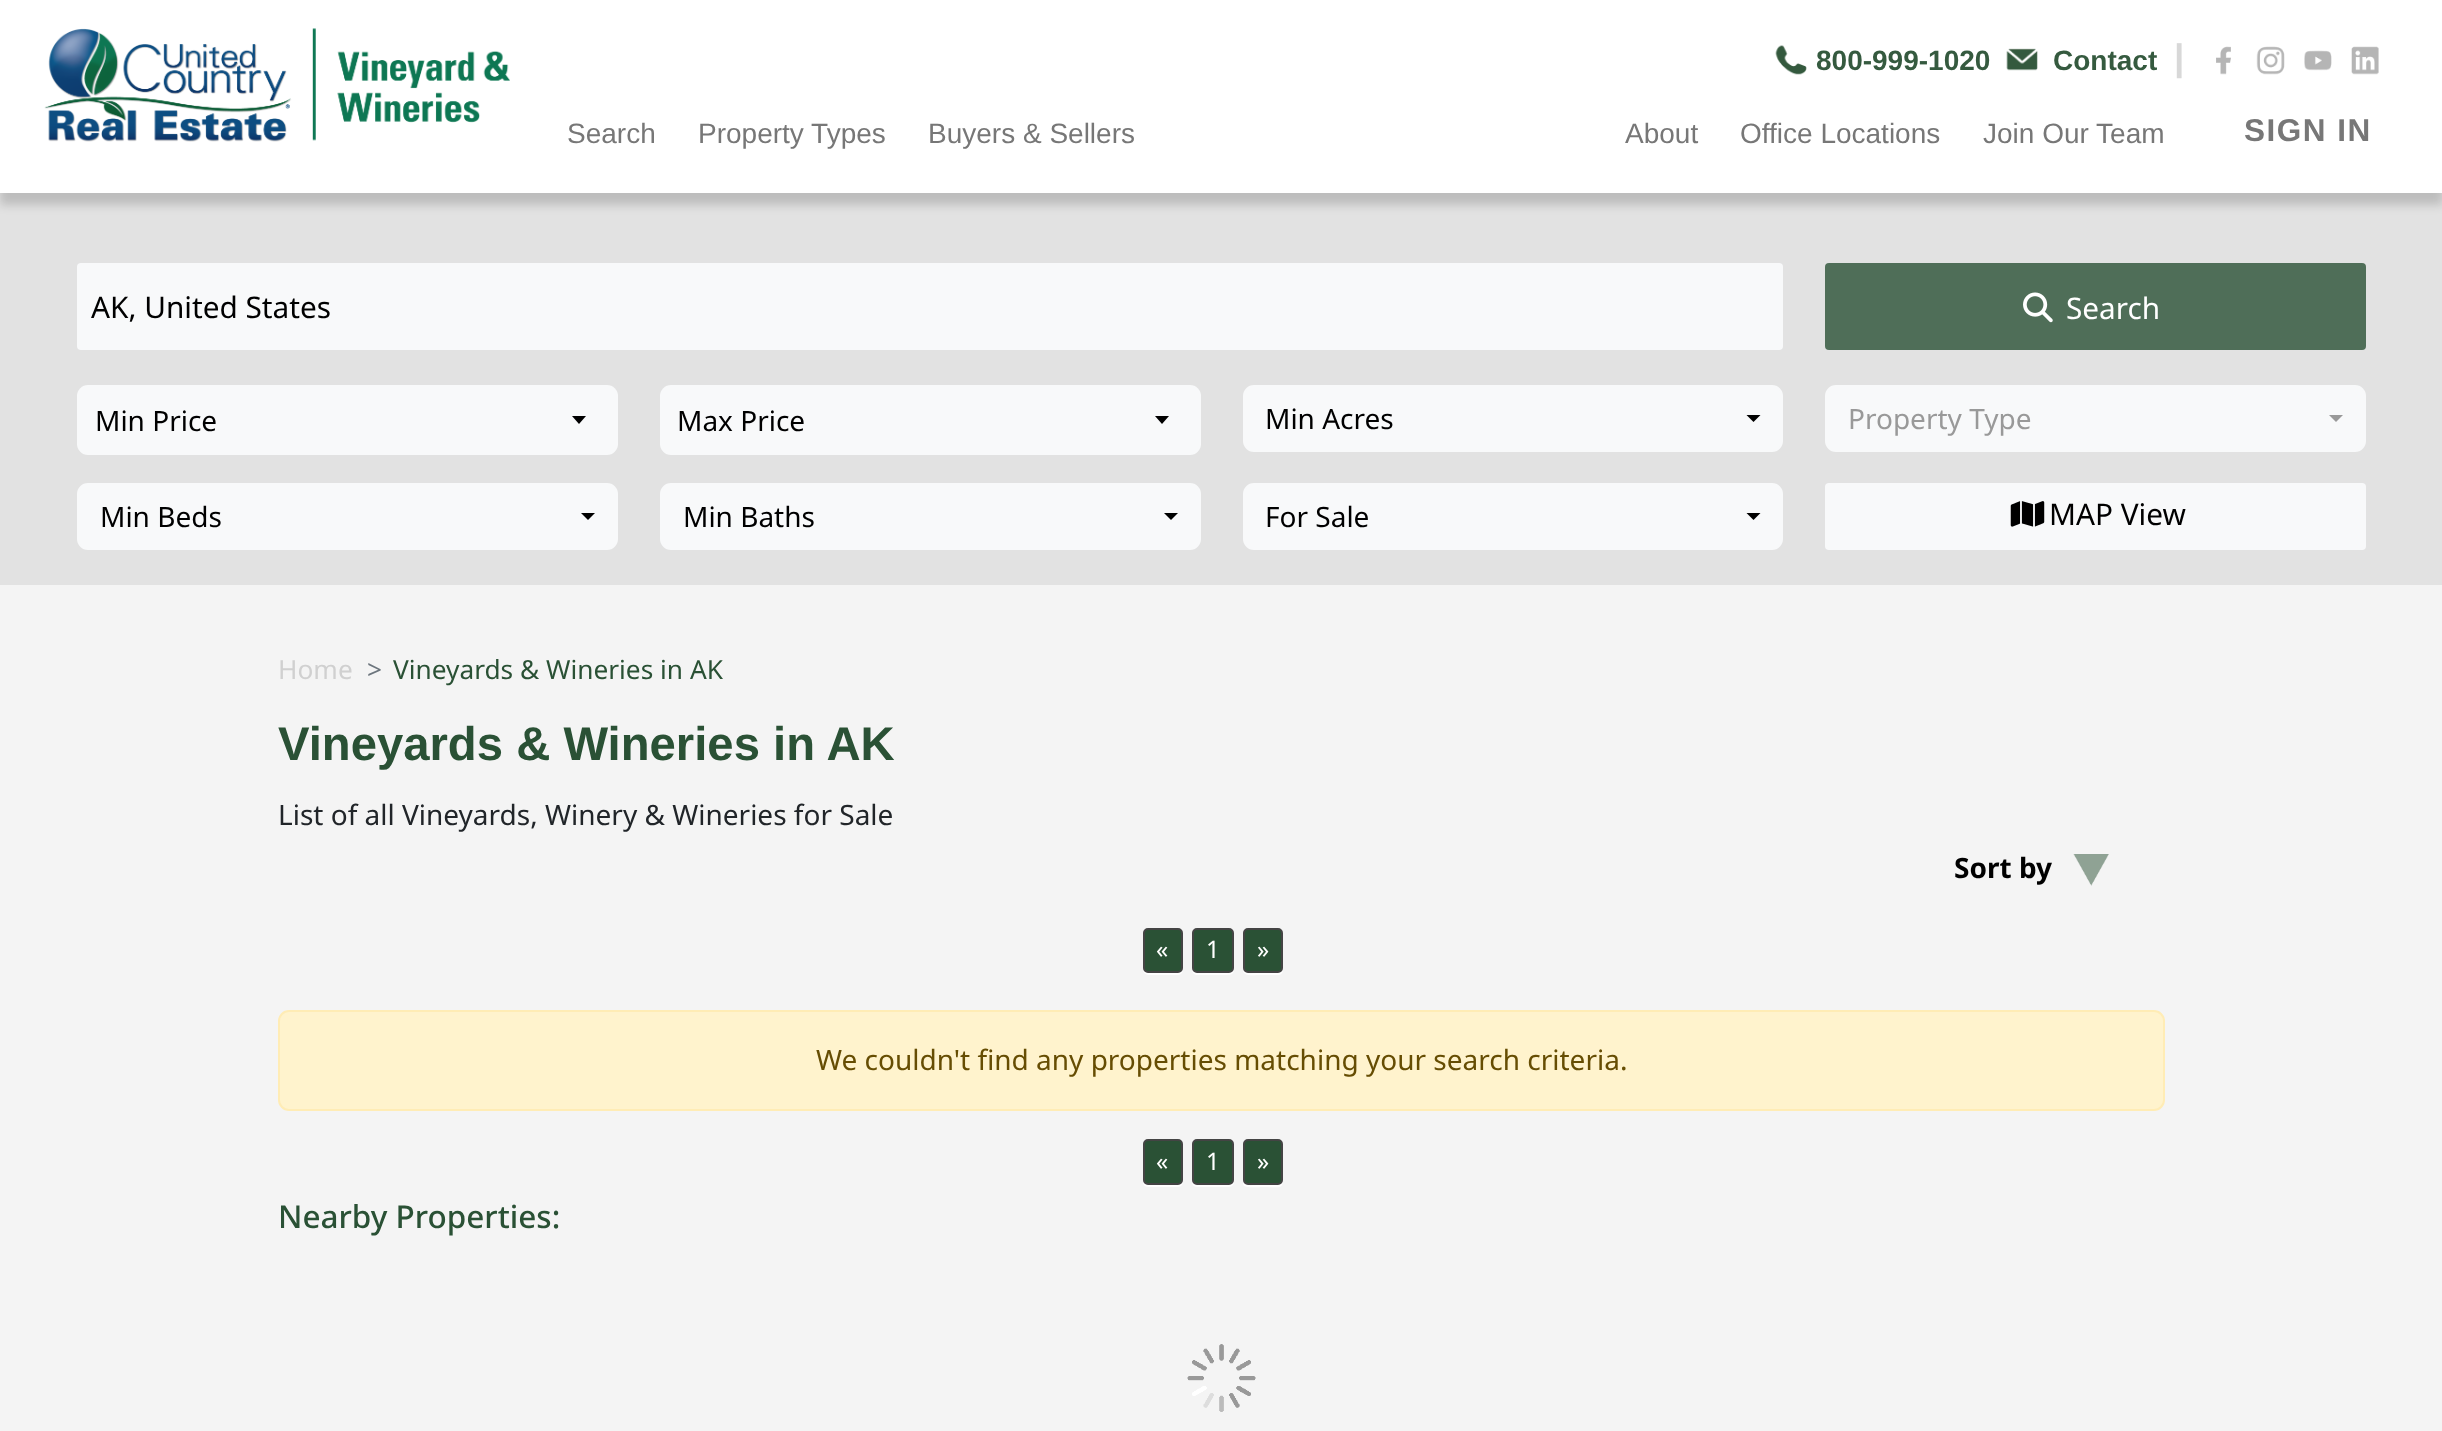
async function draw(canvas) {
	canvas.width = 2442;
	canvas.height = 1431;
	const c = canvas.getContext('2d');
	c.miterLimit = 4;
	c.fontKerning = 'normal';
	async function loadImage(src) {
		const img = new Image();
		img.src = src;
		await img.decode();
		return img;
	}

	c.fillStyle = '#fff';
	c.fillRect(0, 0, 2442, 1431);
	c.fillStyle = '#e2e2e2';
	c.fillRect(0, 193, 2442, 392);
	c.save();
	c.beginPath();
	c.moveTo(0, 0);
	c.lineTo(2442, 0);
	c.lineTo(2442, 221);
	c.lineTo(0, 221);
	c.closePath();
	c.moveTo(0, 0);
	c.lineTo(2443, 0);
	c.lineTo(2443, 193);
	c.lineTo(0, 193);
	c.closePath();
	c.clip('evenodd');
	c.fillStyle = '#00000029';
	c.filter = 'blur(5px)';
	c.beginPath();
	c.rect(0, 12, 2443, 193);
	c.fill();
	c.filter = 'none';
	c.restore();
	c.fillStyle = '#ffffffcc';
	c.fillRect(0, 192, 2442, 1);
	c.drawImage(await loadImage('img1.png'), 1775, 45, 32, 30);
	c.font = 'bold 28px Liberation Sans';
	c.fillStyle = '#355a3f';
	c.fillText('800-999-1020', 1816, 70);
	c.drawImage(await loadImage('img2.png'), 2006, 48, 32, 23);
	c.fillText('Contact', 2053, 70);
	c.font = 'bold 37px Liberation Sans';
	c.fillStyle = '#d8d8d8';
	c.fillText('|', 2174, 70);
	c.drawImage(await loadImage('img3.png'), 2216, 46, 15, 29);
	c.drawImage(await loadImage('img4.png'), 2256, 46, 29, 29);
	c.drawImage(await loadImage('img5.png'), 2304, 50, 28, 21);
	c.drawImage(await loadImage('img6.png'), 2351, 46, 28, 29);
	c.drawImage(await loadImage('img7.png'), 44, 28, 466, 114);
	c.font = '28px Liberation Sans';
	c.fillStyle = '#777';
	for (const [text, x, y] of [
		['Search', 567, 143],
		['Property Types', 698, 143],
		['Buyers & Sellers', 928, 143],
		['About', 1625, 143],
		['Office Locations', 1740, 143],
		['Join Our Team', 1983, 143],
	]) {
		c.fillText(text, x, y);
	}
	c.letterSpacing = '1.5px';
	c.font = 'bold 31.5px Liberation Sans';
	c.fillText('SIGN IN', 2244, 141);
	c.fillStyle = '#f4f4f4';
	c.fillRect(0, 585, 2442, 846);
	c.fillStyle = '#f8f9fa';
	c.beginPath();
	c.roundRect(77, 263, 1706, 87, 4);
	c.fill();
	c.letterSpacing = '0px';
	c.font = '29.75px Noto Sans';
	c.fillStyle = '#000';
	c.fillText('AK, United States', 91, 318);
	c.fillStyle = '#4f6e58';
	c.beginPath();
	c.roundRect(1825, 263, 541, 87, 4);
	c.fill();
	c.drawImage(await loadImage('img8.png'), 2023, 292, 30, 31);
	c.fillStyle = '#fff';
	c.fillText('Search', 2066, 319);
	c.fillStyle = '#f8f9fa';
	c.beginPath();
	c.roundRect(77, 385, 541, 70, 11);
	c.fill();
	c.fillStyle = '#000';
	c.beginPath();
	c.moveTo(572, 416);
	c.lineTo(579, 424);
	c.lineTo(586, 416);
	c.closePath();
	c.fill();
	c.font = '28px Noto Sans';
	c.fillText('Min Price', 95, 431);
	c.fillStyle = '#f8f9fa';
	c.beginPath();
	c.roundRect(660, 385, 541, 70, 11);
	c.fill();
	c.fillStyle = '#000';
	c.beginPath();
	c.moveTo(1155, 416);
	c.lineTo(1162, 424);
	c.lineTo(1169, 416);
	c.closePath();
	c.fill();
	c.fillText('Max Price', 677, 431);
	c.fillStyle = '#f8f9fa';
	c.beginPath();
	c.roundRect(1244, 386, 538, 65, 10);
	c.fill();
	c.strokeStyle = '#f8f9fa';
	c.lineWidth = 2;
	c.stroke();
	c.fillStyle = '#000';
	c.fillText('Min Acres', 1265, 429);
	c.beginPath();
	c.moveTo(1746.5, 415);
	c.lineTo(1760.5, 415);
	c.lineTo(1753.5, 422);
	c.closePath();
	c.fill();
	c.fillStyle = '#f8f9fa';
	c.beginPath();
	c.roundRect(1826, 386, 539, 65, 10);
	c.fill();
	c.stroke();
	c.fillStyle = '#999';
	c.fillText('Property Type', 1848, 429);
	c.beginPath();
	c.moveTo(2329, 415);
	c.lineTo(2343, 415);
	c.lineTo(2336, 422);
	c.closePath();
	c.fill();
	c.fillStyle = '#f8f9fa';
	c.beginPath();
	c.roundRect(78, 484, 539, 65, 10);
	c.fill();
	c.stroke();
	c.fillStyle = '#000';
	c.fillText('Min Beds', 100, 527);
	c.beginPath();
	c.moveTo(581, 513);
	c.lineTo(595, 513);
	c.lineTo(588, 520);
	c.closePath();
	c.fill();
	c.fillStyle = '#f8f9fa';
	c.beginPath();
	c.roundRect(661, 484, 539, 65, 10);
	c.fill();
	c.stroke();
	c.fillStyle = '#000';
	c.fillText('Min Baths', 683, 527);
	c.beginPath();
	c.moveTo(1164, 513);
	c.lineTo(1178, 513);
	c.lineTo(1171, 520);
	c.closePath();
	c.fill();
	c.fillStyle = '#f8f9fa';
	c.beginPath();
	c.roundRect(1244, 484, 538, 65, 10);
	c.fill();
	c.stroke();
	c.fillStyle = '#000';
	c.fillText('For Sale', 1265, 527);
	c.beginPath();
	c.moveTo(1746.5, 513);
	c.lineTo(1760.5, 513);
	c.lineTo(1753.5, 520);
	c.closePath();
	c.fill();
	c.fillStyle = '#f8f9fa';
	c.beginPath();
	c.roundRect(1825, 483, 541, 67, 4);
	c.fill();
	c.drawImage(await loadImage('img9.png'), 2010, 501, 35, 26);
	c.font = '29.75px Noto Sans';
	c.fillStyle = '#000';
	c.fillText('MAP View', 2049, 525);
	c.font = '26.25px Noto Sans';
	c.fillStyle = '#d0d0d0';
	c.fillText('Home', 278, 679);
	c.fillStyle = '#6c757d';
	c.fillText('>', 367, 679);
	c.fillStyle = '#2a5135';
	c.fillText('Vineyards & Wineries in AK', 393, 679);
	c.font = 'bold 47.25px Liberation Sans';
	c.fillText('Vineyards & Wineries in AK', 278, 760);
	c.font = '28px Noto Sans';
	c.fillStyle = '#212529';
	c.fillText('List of all Vineyards, Winery & Wineries for Sale', 278, 825);
	c.font = 'bold 28px Noto Sans';
	c.fillStyle = '#000';
	c.fillText('Sort by', 1954, 878);
	c.drawImage(await loadImage('img10.png'), 2073, 854, 36, 32);
	c.fillStyle = '#fff';
	c.beginPath();
	c.moveTo(1143, 969);
	c.bezierCurveTo(1143, 975, 1148, 975, 1153, 975);
	c.lineTo(1173, 975);
	c.bezierCurveTo(1180, 975, 1183, 975, 1183, 968);
	c.bezierCurveTo(1183, 971, 1181, 973, 1178, 973);
	c.lineTo(1148, 973);
	c.bezierCurveTo(1146, 973, 1144, 971, 1143, 969);
	c.closePath();
	c.fill();
	c.fillStyle = '#2a5135';
	c.beginPath();
	c.roundRect(1144, 929, 38, 43, 4);
	c.fill();
	c.strokeStyle = '#444';
	c.stroke();
	c.font = '24px Noto Sans';
	c.fillStyle = '#fff';
	c.fillText('«', 1156, 958);
	c.beginPath();
	c.moveTo(1192, 969);
	c.bezierCurveTo(1192, 972, 1193, 974, 1196, 975);
	c.lineTo(1218, 975);
	c.bezierCurveTo(1236, 975, 1234, 976, 1234, 958);
	c.lineTo(1234, 932);
	c.lineTo(1234, 956);
	c.bezierCurveTo(1234, 974, 1236, 973, 1218, 973);
	c.lineTo(1208, 973);
	c.bezierCurveTo(1203, 973, 1194, 975, 1192, 969);
	c.closePath();
	c.fill();
	c.fillStyle = '#2a5135';
	c.beginPath();
	c.roundRect(1193, 929, 40, 43, 4);
	c.fill();
	c.stroke();
	c.fillStyle = '#fff';
	c.fillText('1', 1206, 958);
	c.beginPath();
	c.moveTo(1243, 970);
	c.bezierCurveTo(1243, 977, 1254, 975, 1258, 975);
	c.lineTo(1279, 975);
	c.bezierCurveTo(1284, 974, 1283, 968, 1283, 964);
	c.lineTo(1283, 932);
	c.lineTo(1283, 956);
	c.bezierCurveTo(1283, 974, 1285, 973, 1268, 973);
	c.lineTo(1258, 973);
	c.bezierCurveTo(1254, 973, 1245, 975, 1243, 970);
	c.closePath();
	c.fill();
	c.fillStyle = '#2a5135';
	c.beginPath();
	c.roundRect(1244, 929, 38, 43, 4);
	c.fill();
	c.stroke();
	c.fillStyle = '#fff';
	c.fillText('»', 1257, 958);
	c.fillStyle = '#fff3cd';
	c.beginPath();
	c.roundRect(279, 1011, 1885, 99, 10);
	c.fill();
	c.strokeStyle = '#ffecb5';
	c.stroke();
	c.font = '28px Noto Sans';
	c.fillStyle = '#664d03';
	c.fillText('We couldn\'t find any properties matching your search criteria.', 816, 1070);
	c.fillStyle = '#fff';
	c.beginPath();
	c.moveTo(1143, 1181);
	c.bezierCurveTo(1143, 1188, 1148, 1187, 1153, 1187);
	c.lineTo(1173, 1187);
	c.bezierCurveTo(1180, 1187, 1183, 1187, 1183, 1180);
	c.bezierCurveTo(1183, 1182, 1181, 1185, 1178, 1185);
	c.lineTo(1148, 1185);
	c.bezierCurveTo(1146, 1185, 1144, 1183, 1143, 1181);
	c.closePath();
	c.fill();
	c.fillStyle = '#2a5135';
	c.beginPath();
	c.roundRect(1144, 1140, 38, 44, 4);
	c.fill();
	c.strokeStyle = '#444';
	c.stroke();
	c.font = '24px Noto Sans';
	c.fillStyle = '#fff';
	c.fillText('«', 1156, 1170);
	c.beginPath();
	c.moveTo(1192, 1181);
	c.bezierCurveTo(1192, 1188, 1197, 1187, 1202, 1187);
	c.lineTo(1213, 1187);
	c.bezierCurveTo(1238, 1187, 1234, 1190, 1234, 1164);
	c.lineTo(1234, 1144);
	c.lineTo(1234, 1174);
	c.bezierCurveTo(1234, 1184, 1234, 1185, 1223, 1185);
	c.lineTo(1202, 1185);
	c.bezierCurveTo(1199, 1185, 1193, 1186, 1192, 1181);
	c.closePath();
	c.fill();
	c.fillStyle = '#2a5135';
	c.beginPath();
	c.roundRect(1193, 1140, 40, 44, 4);
	c.fill();
	c.stroke();
	c.fillStyle = '#fff';
	c.fillText('1', 1206, 1170);
	c.beginPath();
	c.moveTo(1243, 1182);
	c.bezierCurveTo(1243, 1183, 1243, 1185, 1244, 1186);
	c.bezierCurveTo(1247, 1188, 1259, 1187, 1263, 1187);
	c.bezierCurveTo(1284, 1187, 1283, 1191, 1283, 1170);
	c.lineTo(1283, 1144);
	c.lineTo(1283, 1174);
	c.bezierCurveTo(1283, 1187, 1281, 1185, 1268, 1185);
	c.lineTo(1258, 1185);
	c.bezierCurveTo(1254, 1185, 1245, 1187, 1243, 1182);
	c.closePath();
	c.fill();
	c.fillStyle = '#2a5135';
	c.beginPath();
	c.roundRect(1244, 1140, 38, 44, 4);
	c.fill();
	c.stroke();
	c.fillStyle = '#fff';
	c.fillText('»', 1257, 1170);
	c.font = '500 31.5px Noto Sans';
	c.fillStyle = '#2a5135';
	c.fillText('Nearby Properties:', 278, 1228);
	c.drawImage(await loadImage('img11.png'), 1187, 1344, 69, 68);
}

draw(document.querySelector('canvas'));
